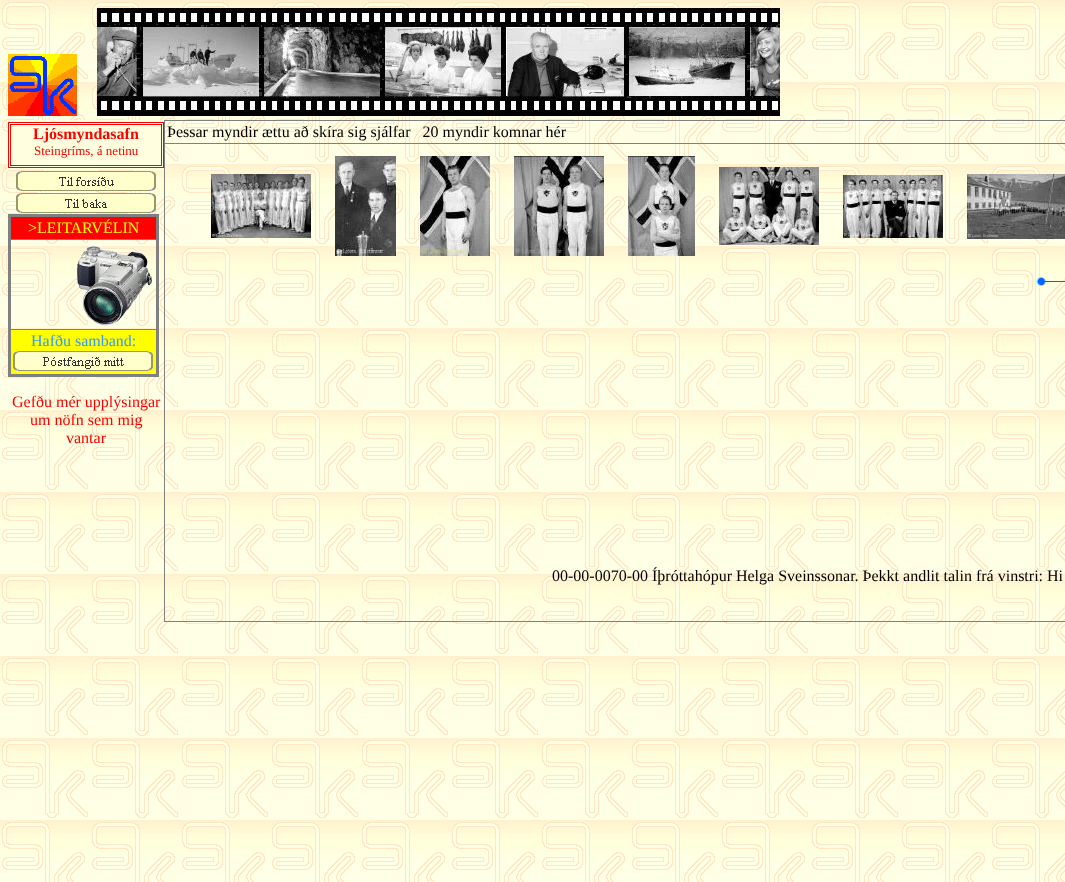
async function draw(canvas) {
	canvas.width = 1065;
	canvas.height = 882;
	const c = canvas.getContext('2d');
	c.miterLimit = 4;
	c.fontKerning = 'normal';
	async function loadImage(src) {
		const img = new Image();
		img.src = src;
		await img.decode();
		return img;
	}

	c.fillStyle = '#fff';
	c.fillRect(0, 0, 1065, 882);
	c.drawImage(await loadImage('img1.png'), 0, 0, 1065, 882);
	c.drawImage(await loadImage('img2.png'), 8, 54, 69, 62);
	c.drawImage(await loadImage('img3.png'), 97, 8, 683, 108);
	c.fillStyle = '#ffffdf';
	c.fillRect(8, 120, 156, 50);
	c.strokeStyle = '#f00';
	c.strokeRect(8.5, 122.5, 155, 45);
	c.strokeRect(10.5, 124.5, 151, 41);
	c.font = 'bold 16px Liberation Serif';
	c.fillStyle = '#f00';
	c.fillText('Ljósmyndasafn', 33, 139);
	c.font = '13px Liberation Serif';
	c.fillText('Steingríms, á netinu', 34, 155);
	c.drawImage(await loadImage('img4.png'), 16, 171, 140, 20);
	c.drawImage(await loadImage('img5.png'), 16, 193, 140, 20);
	for (const [x, y, w, h, color] of [
		[8, 214, 151, 3, '#808080'],
		[9, 239, 149, 1, '#808080'],
		[9, 329, 149, 1, '#808080'],
		[156, 214, 3, 163, '#808080'],
		[8, 374, 151, 3, '#808080'],
		[8, 214, 3, 163, '#808080'],
		[11, 217, 145, 22, '#f00'],
	]) {
		c.fillStyle = color;
		c.fillRect(x, y, w, h);
	}
	c.font = '16px Liberation Serif';
	c.fillStyle = '#ff0';
	c.fillText('>LEITARVÉLIN', 28, 233);
	c.drawImage(await loadImage('img6.png'), 77, 246, 75, 80);
	c.fillRect(11, 330, 145, 44);
	c.fillStyle = '#39f';
	c.fillText('Hafðu samband:', 31, 346);
	c.drawImage(await loadImage('img7.png'), 13, 351, 140, 20);
	c.fillStyle = '#f00';
	for (const [text, x, y] of [
		['Gefðu mér upplýsingar', 12, 407],
		['um nöfn sem mig', 30, 425],
		['vantar', 66, 443],
	]) {
		c.fillText(text, x, y);
	}
	for (const [x, y, w, h, color] of [
		[164, 120, 901, 1, '#808080'],
		[164, 621, 901, 1, '#808080'],
		[164, 120, 1, 502, '#808080'],
	]) {
		c.fillStyle = color;
		c.fillRect(x, y, w, h);
	}
	c.fillStyle = '#000';
	c.fillText('Þessar myndir ættu að skíra sig sjálfar   20 myndir komnar hér', 167, 137);
	c.fillStyle = '#808080';
	c.fillRect(164, 143, 901, 1);
	c.drawImage(await loadImage('img8.png'), 211, 174, 100, 64);
	c.drawImage(await loadImage('img9.png'), 335, 156, 61, 100);
	c.drawImage(await loadImage('img10.png'), 420, 156, 70, 100);
	c.drawImage(await loadImage('img11.png'), 514, 156, 90, 100);
	c.drawImage(await loadImage('img12.png'), 628, 156, 67, 100);
	c.drawImage(await loadImage('img13.png'), 719, 167, 100, 78);
	c.drawImage(await loadImage('img14.png'), 843, 175, 100, 63);
	c.drawImage(await loadImage('img15.png'), 967, 174, 98, 65);
	c.drawImage(await loadImage('img16.png'), 1036, 277, 29, 9);
	c.fillStyle = '#000';
	c.fillText('00-00-0070-00 Íþróttahópur Helga Sveinssonar. Þekkt andlit talin frá vinstri: Hi', 552, 581);
}

draw(document.querySelector('canvas'));
